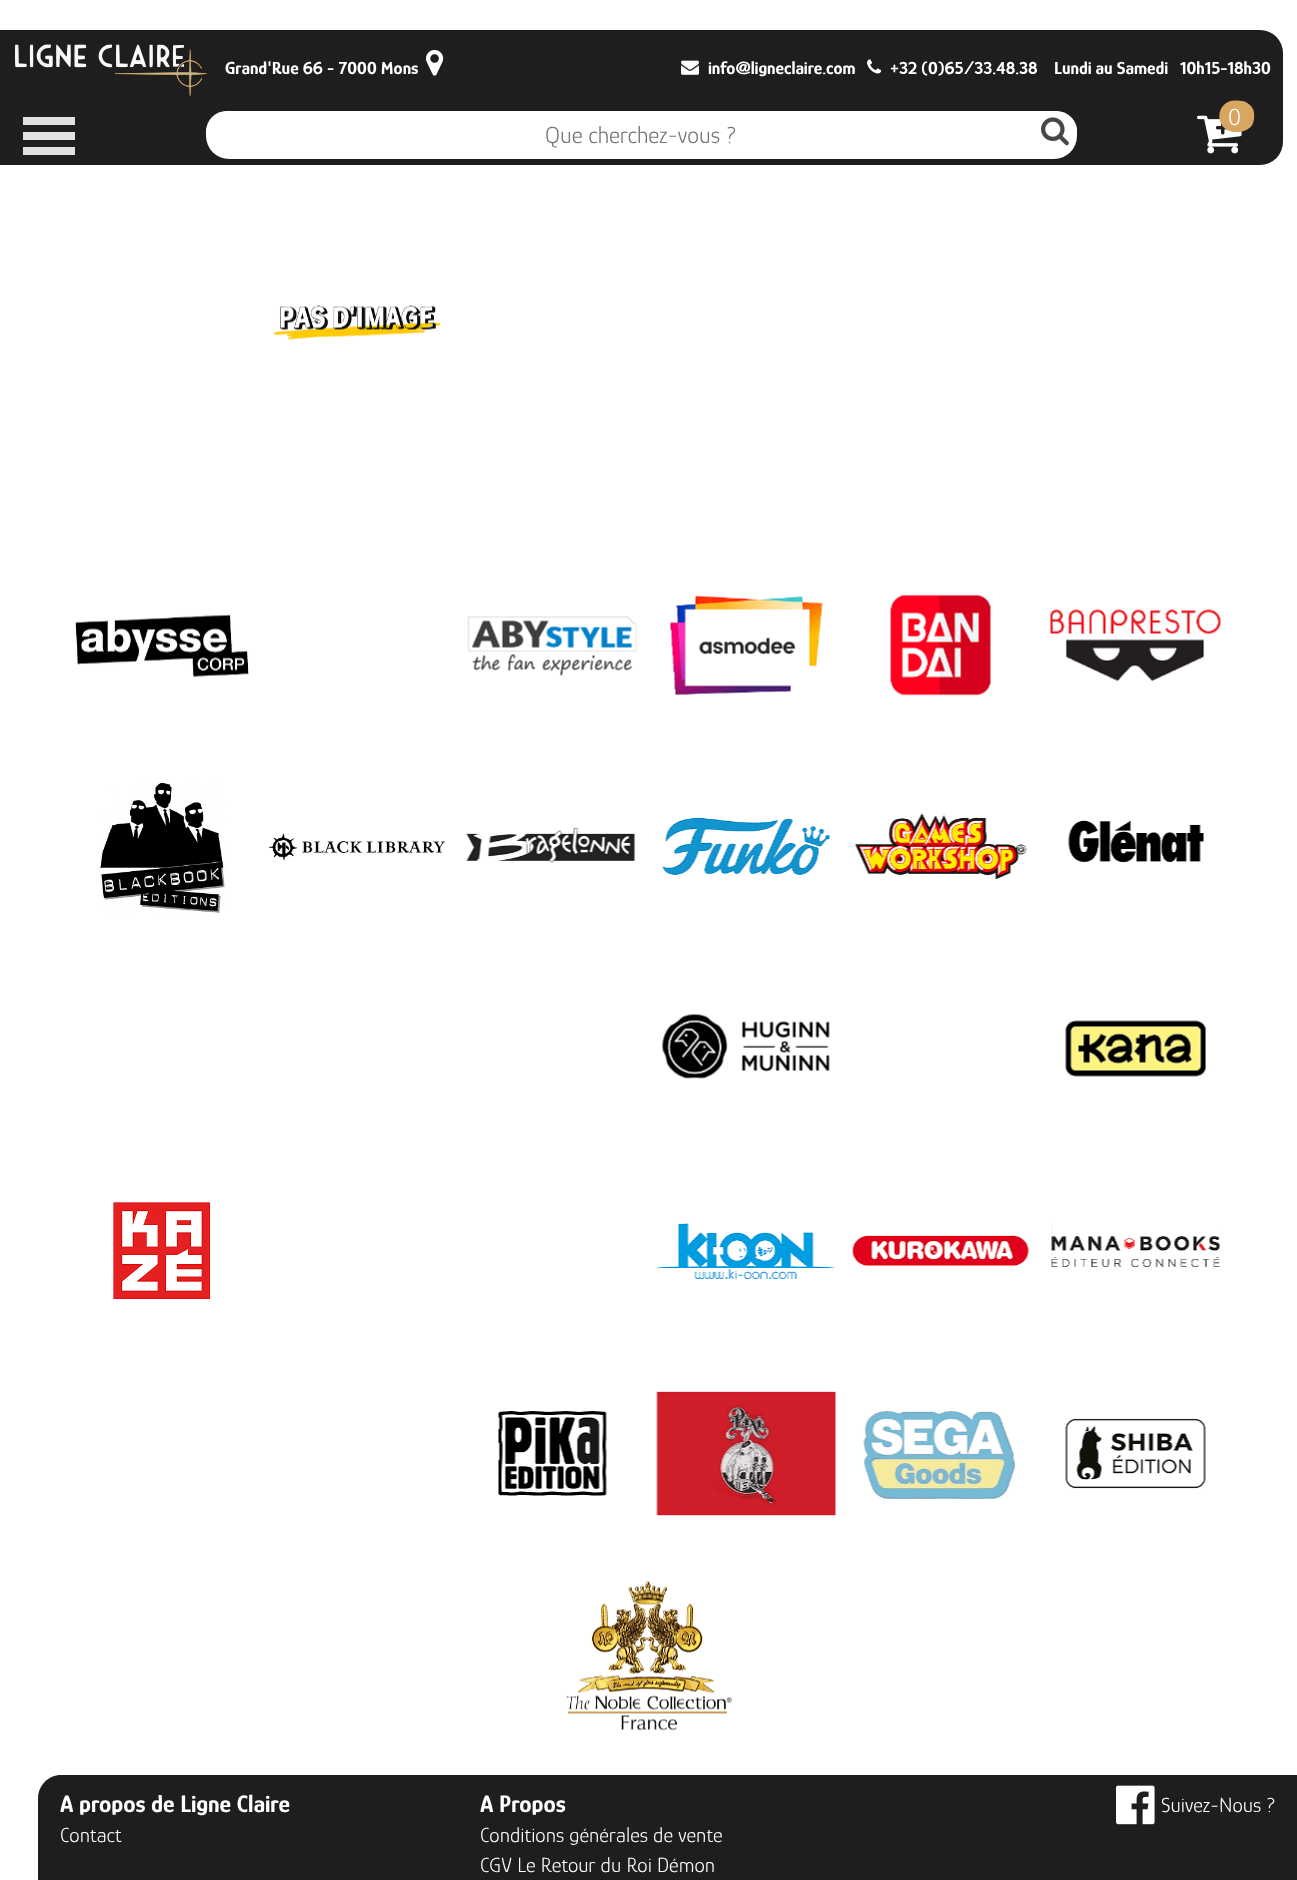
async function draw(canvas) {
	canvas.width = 1297;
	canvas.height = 1880;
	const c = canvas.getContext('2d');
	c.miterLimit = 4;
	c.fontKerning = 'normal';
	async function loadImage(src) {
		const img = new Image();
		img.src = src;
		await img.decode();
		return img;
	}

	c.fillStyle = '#fff';
	c.fillRect(0, 0, 1297, 1880);
	c.fillStyle = '#1e1e1e';
	c.beginPath();
	c.roundRect(0, 30, 1283, 75, [0, 23, 0, 0]);
	c.fill();
	c.drawImage(await loadImage('img1.png'), 15, 44, 192, 53);
	c.font = 'bold 18px Glory';
	c.fillStyle = '#fff';
	c.fillText('Grand\'Rue 66 - 7000 Mons', 225, 74);
	c.drawImage(await loadImage('img2.png'), 426, 49, 18, 27);
	c.drawImage(await loadImage('img3.png'), 681, 60, 18, 15);
	c.fillText('info@ligneclaire.com', 708, 74);
	c.drawImage(await loadImage('img4.png'), 867, 59, 15, 15);
	for (const [text, x, y] of [
		['+32 (0)65/33.48.38', 890, 74],
		['Lundi au Samedi', 1054, 74],
		['10h15-18h30', 1180, 74],
	]) {
		c.fillText(text, x, y);
	}
	c.fillStyle = '#1e1e1e';
	c.beginPath();
	c.roundRect(0, 105, 1283, 60, [0, 0, 23, 0]);
	c.fill();
	for (const [x, y, w, h, color] of [
		[23, 117, 52, 8, '#e1e1e1'],
		[23, 132, 52, 8, '#e1e1e1'],
		[23, 147, 52, 8, '#e1e1e1'],
	]) {
		c.fillStyle = color;
		c.fillRect(x, y, w, h);
	}
	c.fillStyle = '#fff';
	c.beginPath();
	c.roundRect(206, 111, 871, 48, 23);
	c.fill();
	c.beginPath();
	c.roundRect(206, 111, 871, 41, 20.5);
	c.fill();
	c.font = '300 24px Glory';
	c.fillStyle = '#757575';
	c.fillText('Que cherchez-vous ?', 545, 143);
	c.fillStyle = '#fff';
	c.beginPath();
	c.roundRect(1032, 113, 45, 36, 18);
	c.fill();
	c.drawImage(await loadImage('img5.png'), 1041, 117, 28, 29);
	c.drawImage(await loadImage('img6.png'), 1197, 115, 45, 39);
	c.fillStyle = '#d8a660';
	c.beginPath();
	c.moveTo(1235, 100.5);
	c.bezierCurveTo(1238.5, 100.5, 1241.5, 100.5, 1244.5, 101.5);
	c.bezierCurveTo(1248, 103, 1251, 105.5, 1253, 109);
	c.bezierCurveTo(1255, 114, 1254.5, 121.5, 1251.5, 126);
	c.bezierCurveTo(1248, 130, 1243.5, 131.5, 1238.5, 132);
	c.bezierCurveTo(1213, 134, 1214, 100.5, 1235, 100.5);
	c.closePath();
	c.fill();
	c.fillStyle = '#fff';
	c.fillText('0', 1228, 125);
	c.drawImage(await loadImage('img7.png'), 273, 305, 168, 35);
	c.drawImage(await loadImage('img8.png'), 75, 614, 174, 64);
	c.drawImage(await loadImage('img9.png'), 467, 616, 170, 60);
	c.drawImage(await loadImage('img10.png'), 670, 595, 153, 101);
	c.drawImage(await loadImage('img11.png'), 890, 594, 101, 102);
	c.drawImage(await loadImage('img12.png'), 1050, 609, 171, 72);
	c.drawImage(await loadImage('img13.png'), 100, 782, 126, 131);
	c.drawImage(await loadImage('img14.png'), 269, 833, 176, 28);
	c.drawImage(await loadImage('img15.png'), 466, 827, 170, 36);
	c.drawImage(await loadImage('img16.png'), 662, 818, 169, 57);
	c.drawImage(await loadImage('img17.png'), 855, 813, 172, 66);
	c.drawImage(await loadImage('img18.png'), 1068, 820, 136, 43);
	c.drawImage(await loadImage('img19.png'), 662, 1014, 168, 65);
	c.drawImage(await loadImage('img20.png'), 1065, 1020, 142, 57);
	c.drawImage(await loadImage('img21.png'), 113, 1202, 97, 97);
	c.drawImage(await loadImage('img22.png'), 656, 1223, 179, 56);
	c.drawImage(await loadImage('img23.png'), 852, 1235, 177, 31);
	c.drawImage(await loadImage('img24.png'), 1051, 1223, 169, 44);
	c.drawImage(await loadImage('img25.png'), 498, 1411, 109, 85);
	c.drawImage(await loadImage('img26.png'), 656, 1391, 180, 125);
	c.drawImage(await loadImage('img27.png'), 863, 1409, 153, 91);
	c.drawImage(await loadImage('img28.png'), 1065, 1418, 141, 71);
	c.drawImage(await loadImage('img29.png'), 566, 1581, 166, 150);
	c.fillStyle = '#1e1e1e';
	c.beginPath();
	c.moveTo(61, 1775);
	c.lineTo(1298, 1775);
	c.lineTo(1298, 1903);
	c.lineTo(61, 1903);
	c.bezierCurveTo(48.5, 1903, 38, 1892.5, 38, 1880);
	c.lineTo(38, 1798);
	c.bezierCurveTo(38, 1785.5, 48.5, 1775, 61, 1775);
	c.closePath();
	c.fill();
	c.font = 'bold 24.5px Glory';
	c.fillStyle = '#fff';
	c.fillText('A propos de Ligne Claire', 60, 1812);
	c.font = '300 21px Glory';
	c.fillText('Contact', 60, 1842);
	c.font = 'bold 24.5px Glory';
	c.fillText('A Propos', 480, 1812);
	c.font = '300 21px Glory';
	c.fillText('Conditions générales de vente', 480, 1842);
	c.fillText('CGV Le Retour du Roi Démon', 480, 1872);
	c.drawImage(await loadImage('img30.png'), 1116, 1785, 39, 40);
	c.fillText('Suivez-Nous ?', 1161, 1812);
}

draw(document.querySelector('canvas'));
